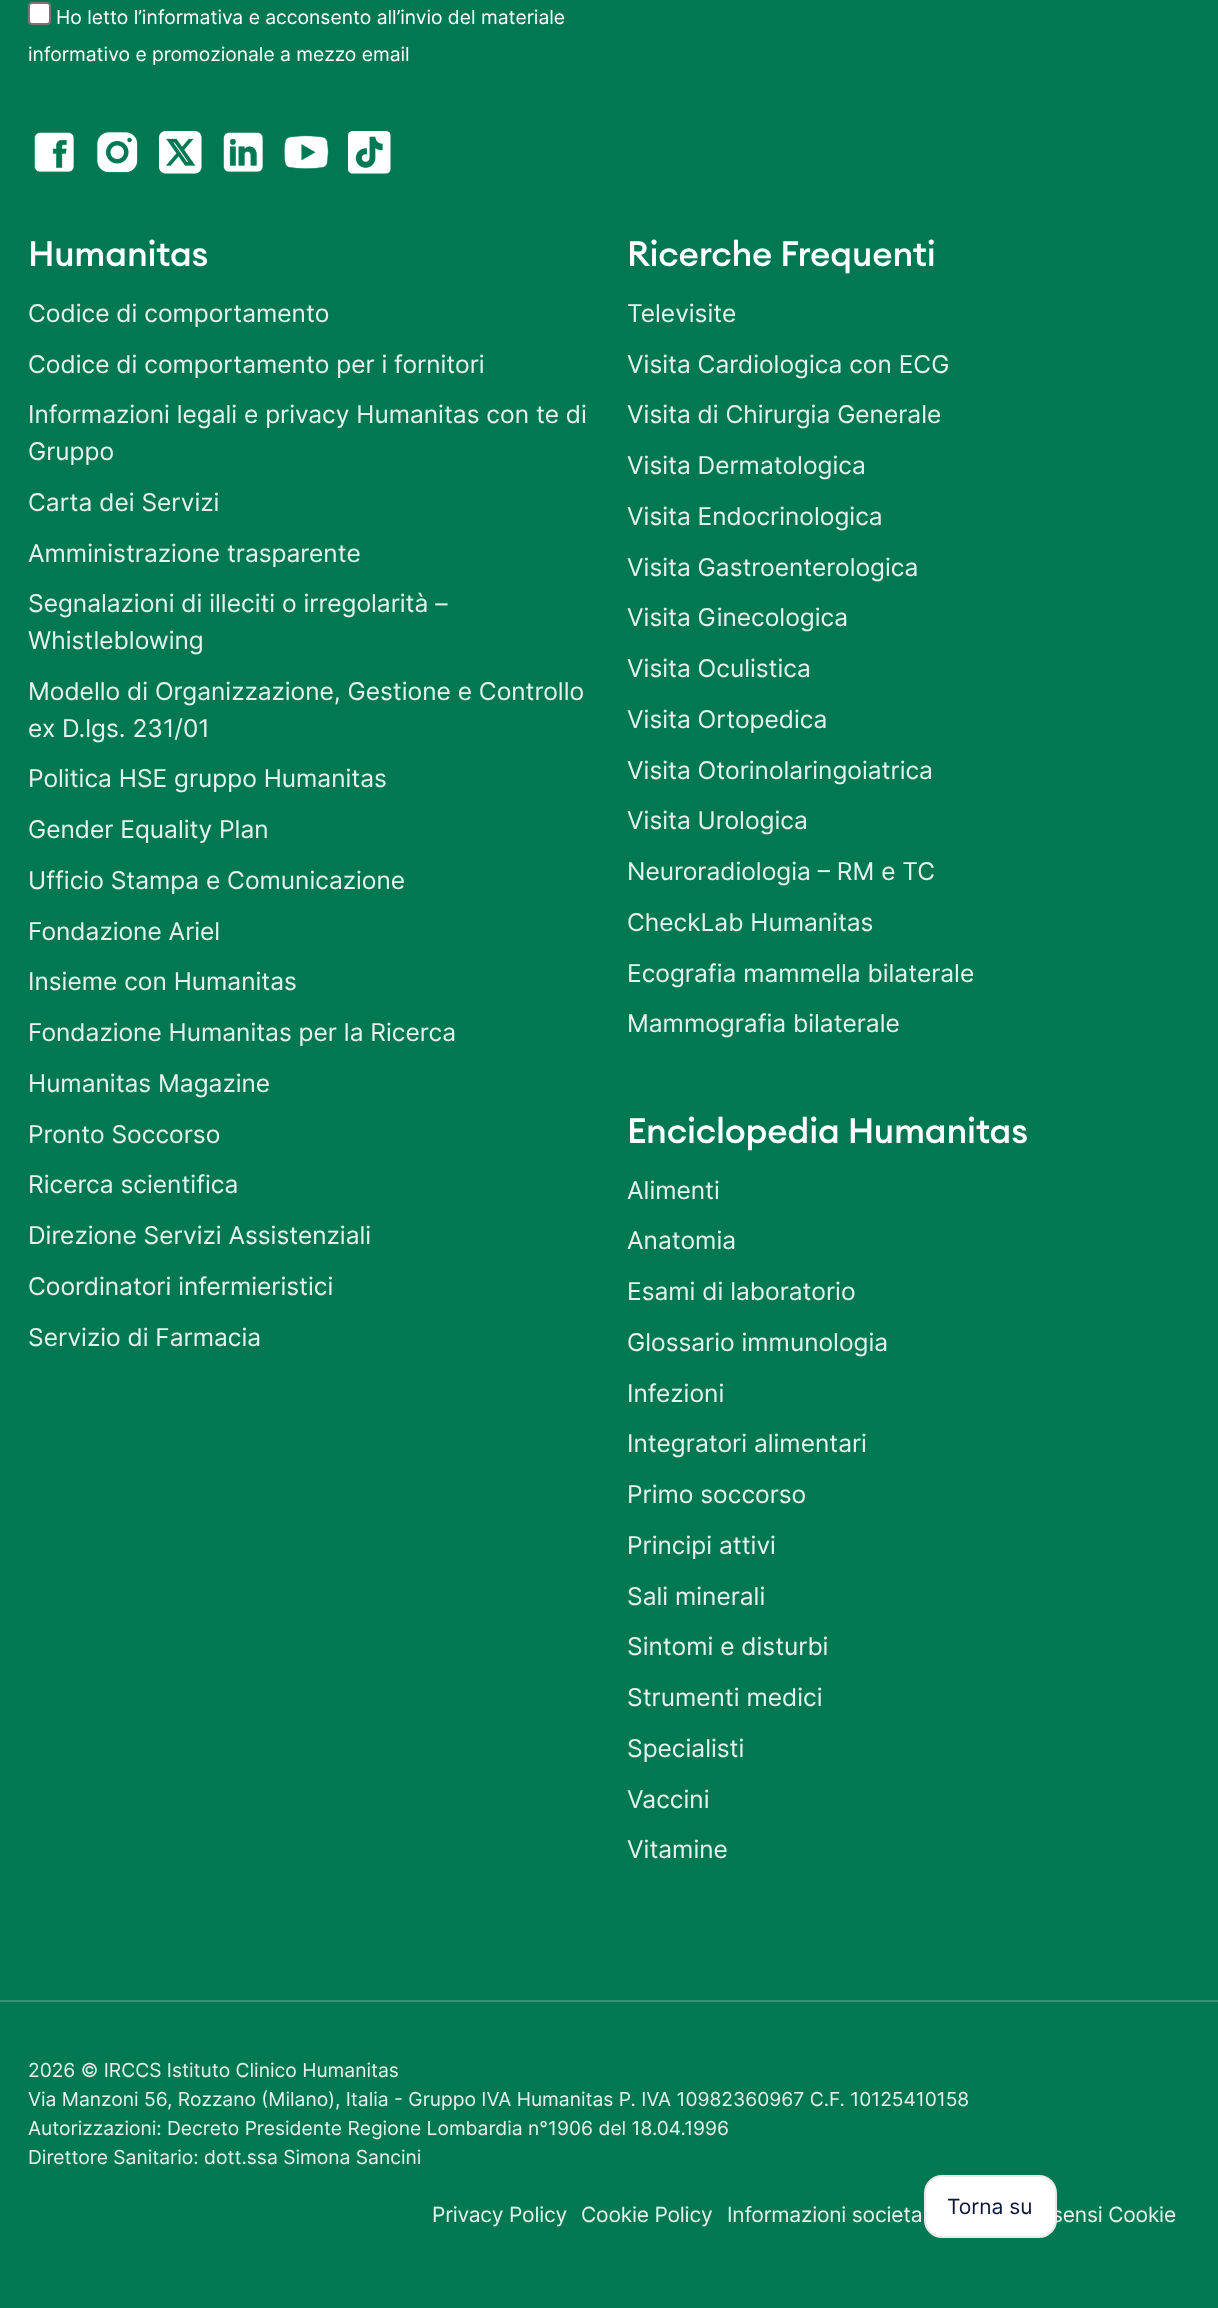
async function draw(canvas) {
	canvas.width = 1218;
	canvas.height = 2308;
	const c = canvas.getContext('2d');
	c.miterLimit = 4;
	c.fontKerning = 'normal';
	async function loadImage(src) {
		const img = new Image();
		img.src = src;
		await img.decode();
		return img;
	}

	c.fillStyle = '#007953';
	c.fillRect(0, 0, 1218, 2308);
	c.fillStyle = '#fff';
	c.beginPath();
	c.roundRect(29, 3, 21, 21, 3);
	c.fill();
	c.strokeStyle = '#767676';
	c.lineWidth = 2;
	c.stroke();
	c.font = '19.25px Inter';
	c.fillText('Ho letto l’informativa e acconsento all’invio del materiale', 56, 24);
	c.fillText('informativo e promozionale a mezzo email', 28, 61);
	c.drawImage(await loadImage('img1.png'), 34, 132, 40, 40);
	c.drawImage(await loadImage('img2.png'), 96, 131, 42, 42);
	c.drawImage(await loadImage('img3.png'), 159, 131, 43, 43);
	c.drawImage(await loadImage('img4.png'), 223, 132, 40, 40);
	c.drawImage(await loadImage('img5.png'), 284, 135, 45, 34);
	c.drawImage(await loadImage('img6.png'), 348, 131, 43, 43);
	c.letterSpacing = '-0.2px';
	c.font = '500 35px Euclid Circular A';
	c.fillText('Humanitas', 28, 266);
	c.letterSpacing = '0px';
	c.font = '24.5px Inter';
	c.fillStyle = '#e6f2ee';
	for (const [text, x, y] of [
		['Codice di comportamento', 28, 322],
		['Codice di comportamento per i fornitori', 28, 373],
		['Informazioni legali e privacy Humanitas con te di', 28, 423],
		['Gruppo', 28, 460],
		['Carta dei Servizi', 28, 511],
		['Amministrazione trasparente', 28, 562],
		['Segnalazioni di illeciti o irregolarità –', 28, 612],
		['Whistleblowing', 28, 649],
		['Modello di Organizzazione, Gestione e Controllo', 28, 700],
		['ex D.lgs. 231/01', 28, 737],
		['Politica HSE gruppo Humanitas', 28, 787],
		['Gender Equality Plan', 28, 838],
		['Ufficio Stampa e Comunicazione', 28, 889],
		['Fondazione Ariel', 28, 940],
		['Insieme con Humanitas', 28, 990],
		['Fondazione Humanitas per la Ricerca', 28, 1041],
		['Humanitas Magazine', 28, 1092],
		['Pronto Soccorso', 28, 1143],
		['Ricerca scientifica', 28, 1193],
		['Direzione Servizi Assistenziali', 28, 1244],
		['Coordinatori infermieristici', 28, 1295],
		['Servizio di Farmacia', 28, 1346],
	]) {
		c.fillText(text, x, y);
	}
	c.letterSpacing = '-0.2px';
	c.font = '500 35px Euclid Circular A';
	c.fillStyle = '#fff';
	c.fillText('Ricerche Frequenti', 627, 266);
	c.letterSpacing = '0px';
	c.font = '24.5px Inter';
	c.fillStyle = '#e6f2ee';
	for (const [text, x, y] of [
		['Televisite', 627, 322],
		['Visita Cardiologica con ECG', 627, 373],
		['Visita di Chirurgia Generale', 627, 423],
		['Visita Dermatologica', 627, 474],
		['Visita Endocrinologica', 627, 525],
		['Visita Gastroenterologica', 627, 576],
		['Visita Ginecologica', 627, 626],
		['Visita Oculistica', 627, 677],
		['Visita Ortopedica', 627, 728],
		['Visita Otorinolaringoiatrica', 627, 779],
		['Visita Urologica', 627, 829],
		['Neuroradiologia – RM e TC', 627, 880],
		['CheckLab Humanitas', 627, 931],
		['Ecografia mammella bilaterale', 627, 982],
		['Mammografia bilaterale', 627, 1032],
	]) {
		c.fillText(text, x, y);
	}
	c.letterSpacing = '-0.2px';
	c.font = '500 35px Euclid Circular A';
	c.fillStyle = '#fff';
	c.fillText('Enciclopedia Humanitas', 627, 1143);
	c.letterSpacing = '0px';
	c.font = '24.5px Inter';
	c.fillStyle = '#e6f2ee';
	for (const [text, x, y] of [
		['Alimenti', 627, 1199],
		['Anatomia', 627, 1249],
		['Esami di laboratorio', 627, 1300],
		['Glossario immunologia', 627, 1351],
		['Infezioni', 627, 1402],
		['Integratori alimentari', 627, 1452],
		['Primo soccorso', 627, 1503],
		['Principi attivi', 627, 1554],
		['Sali minerali', 627, 1605],
		['Sintomi e disturbi', 627, 1655],
		['Strumenti medici', 627, 1706],
		['Specialisti', 627, 1757],
		['Vaccini', 627, 1808],
		['Vitamine', 627, 1858],
	]) {
		c.fillText(text, x, y);
	}
	c.fillStyle = '#339475';
	c.fillRect(0, 2000, 1218, 2);
	c.font = '19.25px Inter';
	c.fillStyle = '#e6f2ee';
	for (const [text, x, y] of [
		['2026 © IRCCS Istituto Clinico Humanitas', 28, 2077],
		['Via Manzoni 56, Rozzano (Milano), Italia - Gruppo IVA Humanitas P. IVA 10982360967 C.F. 10125410158', 28, 2106],
		['Autorizzazioni: Decreto Presidente Regione Lombardia n°1906 del 18.04.1996', 28, 2135],
		['Direttore Sanitario: dott.ssa Simona Sancini', 28, 2164],
	]) {
		c.fillText(text, x, y);
	}
	c.letterSpacing = '-0.2px';
	c.font = '21px Inter';
	for (const [text, x, y] of [
		['Privacy Policy', 432, 2222],
		['Cookie Policy', 581, 2222],
		['Informazioni societa', 727, 2222],
		['sensi Cookie', 1052, 2222],
	]) {
		c.fillText(text, x, y);
	}
	c.fillStyle = '#fff';
	c.beginPath();
	c.roundRect(925, 2176, 131, 61, 17);
	c.fill();
	c.strokeStyle = '#eaeaea';
	c.stroke();
	c.letterSpacing = '0px';
	c.fillStyle = '#0c143a';
	c.fillText('Torna su', 947, 2214);
}

draw(document.querySelector('canvas'));
